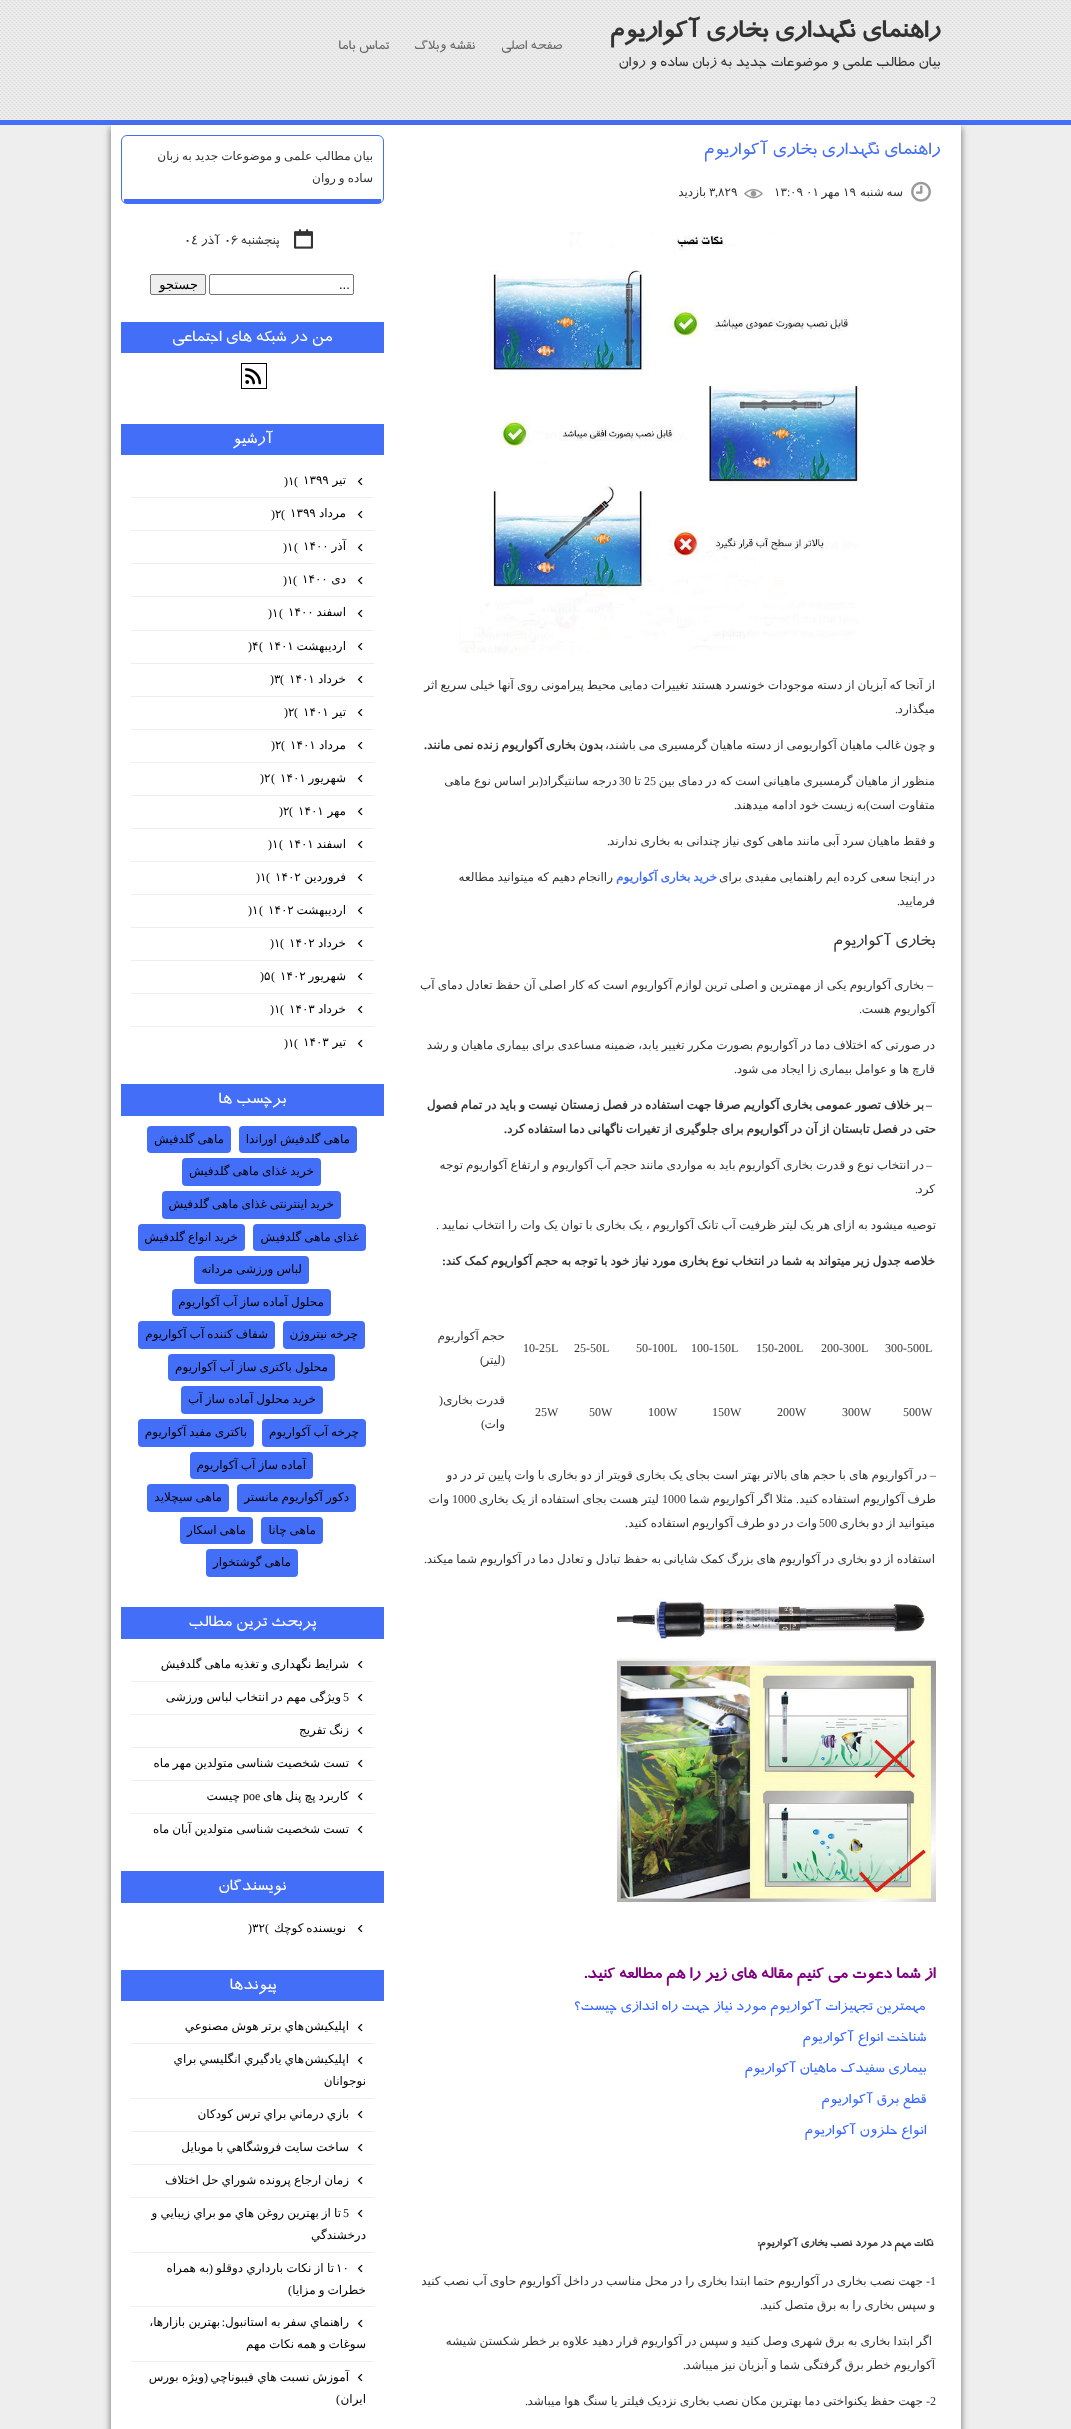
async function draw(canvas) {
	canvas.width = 1071;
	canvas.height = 2429;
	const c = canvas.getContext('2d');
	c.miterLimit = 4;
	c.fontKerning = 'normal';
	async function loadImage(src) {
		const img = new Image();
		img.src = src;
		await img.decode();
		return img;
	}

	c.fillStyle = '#eee';
	c.fillRect(0, 0, 1071, 2429);
	c.drawImage(await loadImage('img1.png'), 0, 0, 1071, 120);
	c.fillStyle = '#436ef7';
	c.fillRect(0, 120, 1071, 5);
	c.direction = 'rtl';
	c.font = 'bold 28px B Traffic';
	c.fillStyle = '#333';
	c.fillText('راهنمای نگهداری بخاری آکواریوم', 940, 37);
	c.font = '16px B Traffic';
	c.fillText('بیان مطالب علمی و موضوعات جدید به زبان ساده و روان', 940, 66);
	c.font = '15px B Traffic';
	c.fillStyle = '#666';
	for (const [text, x, y] of [
		['صفحه اصلی', 562, 49],
		['نقشه وبلاگ', 475, 49],
		['تماس باما', 389, 49],
	]) {
		c.fillText(text, x, y);
	}
	c.fillStyle = '#646464';
	c.filter = 'blur(3.5px)';
	c.beginPath();
	c.rect(111, 128, 850, 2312);
	c.fill();
	c.filter = 'none';
	c.fillStyle = '#fff';
	c.fillRect(111, 125, 850, 2304);
	c.font = '20px B Traffic';
	c.fillStyle = '#436ef7';
	c.fillText('راهنمای نگهداری بخاری آکواریوم', 940, 154);
	c.drawImage(await loadImage('img2.png'), 911, 181, 20, 21);
	c.wordSpacing = '-1px';
	c.font = '12px DejaVu Sans';
	c.fillStyle = '#333';
	c.fillText('سه شنبه', 903, 196);
	c.wordSpacing = '0px';
	c.direction = 'ltr';
	c.fillText('۱۹', 843, 196);
	c.direction = 'rtl';
	c.fillText('مهر', 840, 196);
	c.direction = 'ltr';
	c.fillText('۰۱', 806, 196);
	c.fillText('۰۹', 790, 196);
	c.font = '12px Liberation Serif';
	c.fillText(':', 787, 196);
	c.font = '12px DejaVu Sans';
	c.fillText('۱۳', 774, 196);
	c.drawImage(await loadImage('img3.png'), 744, 188, 19, 11);
	c.fillText('۸۲۹', 718, 196);
	c.fillText('۳', 709, 196);
	c.font = '12px Liberation Serif';
	c.fillText(',', 715, 196);
	c.direction = 'rtl';
	c.font = '12px DejaVu Sans';
	c.fillText('بازديد', 706, 196);
	c.drawImage(await loadImage('img4.png'), 459, 232, 400, 421);
	c.wordSpacing = '-0.8px';
	c.fillText('از آنجا که آبزیان از دسته موجودات خونسرد هستند تغییرات دمایی محیط پیرامونی روی آنها خیلی سریع اثر', 935, 689);
	c.wordSpacing = '0px';
	c.fillText('میگذارد', 935, 713);
	c.font = '12px Liberation Serif';
	c.fillText('.', 898, 713);
	c.wordSpacing = '-0.8px';
	c.font = '12px DejaVu Sans';
	c.fillText('و چون غالب ماهیان آکواریومی از دسته ماهیان گرمسیری می باشند،', 935, 749);
	c.font = 'bold 12px DejaVu Sans';
	c.fillText('بدون بخاری آکواریوم زنده نمی مانند', 603, 749);
	c.wordSpacing = '0px';
	c.font = 'bold 12px Liberation Serif';
	c.fillText('.', 427, 749);
	c.wordSpacing = '-0.8px';
	c.font = '12px DejaVu Sans';
	c.fillText('منظور از ماهیان گرمسیری ماهیانی است که در دمای بین', 935, 785);
	c.wordSpacing = '0px';
	c.direction = 'ltr';
	c.font = '12px Liberation Serif';
	c.fillText('25', 644, 785);
	c.direction = 'rtl';
	c.font = '12px DejaVu Sans';
	c.fillText('تا', 641, 785);
	c.direction = 'ltr';
	c.font = '12px Liberation Serif';
	c.fillText('30', 619, 785);
	c.wordSpacing = '-0.5px';
	c.direction = 'rtl';
	c.font = '12px DejaVu Sans';
	c.fillText('درجه سانتیگراد', 617, 785);
	c.wordSpacing = '0px';
	c.font = '12px Liberation Serif';
	c.fillText('(', 543, 785);
	c.wordSpacing = '-0.5px';
	c.font = '12px DejaVu Sans';
	c.fillText('بر اساس نوع ماهی', 539, 785);
	c.wordSpacing = '-0.8px';
	c.fillText('متفاوت است', 935, 809);
	c.wordSpacing = '0px';
	c.font = '12px Liberation Serif';
	c.fillText(')', 870, 809);
	c.wordSpacing = '-0.8px';
	c.font = '12px DejaVu Sans';
	c.fillText('به زیست خود ادامه میدهند', 866, 809);
	c.wordSpacing = '0px';
	c.font = '12px Liberation Serif';
	c.fillText('.', 737, 809);
	c.wordSpacing = '-0.8px';
	c.font = '12px DejaVu Sans';
	c.fillText('و فقط ماهیان سرد آبی مانند ماهی کوی نیاز چندانی به بخاری ندارند', 935, 845);
	c.wordSpacing = '0px';
	c.font = '12px Liberation Serif';
	c.fillText('.', 610, 845);
	c.wordSpacing = '-0.8px';
	c.font = '12px DejaVu Sans';
	c.fillText('در اینجا سعی کرده ایم راهنمایی مفیدی برای', 935, 881);
	c.font = 'bold 12px DejaVu Sans';
	c.fillStyle = '#436ef7';
	c.fillText('خرید بخاری آکواریوم', 717, 881);
	c.font = '12px DejaVu Sans';
	c.fillStyle = '#333';
	c.fillText('راانجام دهیم که میتوانید مطالعه', 613, 881);
	c.wordSpacing = '0px';
	c.fillText('فرمایید', 935, 905);
	c.font = '12px Liberation Serif';
	c.fillText('.', 900, 905);
	c.font = '18px B Traffic';
	c.fillText('بخاری آکواریوم', 935, 945);
	c.font = '12px Liberation Serif';
	c.fillText('–', 933, 989);
	c.wordSpacing = '-0.75px';
	c.font = '12px DejaVu Sans';
	c.fillText('بخاری آکواریوم یکی از مهمترین و اصلی ترین لوازم آکواریوم است که کار اصلی آن حفظ تعادل دمای آب', 924, 989);
	c.wordSpacing = '-0.8px';
	c.fillText('آکواریوم هست', 935, 1013);
	c.wordSpacing = '0px';
	c.font = '12px Liberation Serif';
	c.fillText('.', 862, 1013);
	c.wordSpacing = '-0.8px';
	c.font = '12px DejaVu Sans';
	c.fillText('در صورتی که اختلاف دما در آکواریوم بصورت مکرر تغییر یابد، ضمینه مساعدی برای بیماری ماهیان و رشد', 935, 1049);
	c.fillText('قارچ ها و عوامل بیماری زا ایجاد می شود', 935, 1073);
	c.wordSpacing = '0px';
	c.font = '12px Liberation Serif';
	c.fillText('.', 737, 1073);
	c.font = 'bold 12px Liberation Serif';
	c.fillText('–', 932, 1109);
	c.wordSpacing = '-0.75px';
	c.font = 'bold 12px DejaVu Sans';
	c.fillText('بر خلاف تصور عمومی بخاری آکواریم صرفا جهت استفاده در فصل زمستان نیست و باید در تمام فصول', 924, 1109);
	c.wordSpacing = '-0.8px';
	c.fillText('حتی در فصل تابستان از آن در آکواریوم برای جلوگیری از تغیرات ناگهانی دما استفاده کرد', 936, 1133);
	c.wordSpacing = '0px';
	c.font = 'bold 12px Liberation Serif';
	c.fillText('.', 507, 1133);
	c.font = '12px Liberation Serif';
	c.fillText('–', 932, 1169);
	c.wordSpacing = '-0.75px';
	c.font = '12px DejaVu Sans';
	c.fillText('در انتخاب نوع و قدرت بخاری آکواریوم باید به مواردی مانند حجم آب آکواریوم و ارتفاع آکواریوم توجه', 924, 1169);
	c.wordSpacing = '0px';
	c.fillText('کرد', 935, 1193);
	c.font = '12px Liberation Serif';
	c.fillText('.', 918, 1193);
	c.wordSpacing = '-0.75px';
	c.font = '12px DejaVu Sans';
	c.fillText('توصیه میشود به ازای هر یک لیتر ظرفیت آب تانک آکواریوم ، یک بخاری با توان یک وات را انتخاب نمایید', 936, 1229);
	c.wordSpacing = '0px';
	c.font = '12px Liberation Serif';
	c.fillText('.', 439, 1229);
	c.wordSpacing = '-0.8px';
	c.font = 'bold 12px DejaVu Sans';
	c.fillText('خلاصه جدول زیر میتواند به شما در انتخاب نوع بخاری مورد نیاز خود با توجه به حجم آکواریوم کمک کند', 935, 1265);
	c.wordSpacing = '0px';
	c.font = 'bold 12px Liberation Serif';
	c.fillText(':', 446, 1265);
	c.direction = 'ltr';
	c.font = '12px Liberation Serif';
	for (const [text, x, y] of [
		['300-500L', 885, 1352],
		['200-300L', 821, 1352],
		['150-200L', 756, 1352],
		['100-150L', 691, 1352],
		['50-100L', 636, 1352],
		['25-50L', 574, 1352],
		['10-25L', 523, 1352],
	]) {
		c.fillText(text, x, y);
	}
	c.wordSpacing = '-0.8px';
	c.direction = 'rtl';
	c.font = '12px DejaVu Sans';
	c.fillText('حجم آکواریوم', 505, 1340);
	c.wordSpacing = '0px';
	c.font = '12px Liberation Serif';
	c.fillText('(', 505, 1364);
	c.fillText(')', 484, 1364);
	c.font = '12px DejaVu Sans';
	c.fillText('لیتر', 501, 1364);
	c.direction = 'ltr';
	c.font = '12px Liberation Serif';
	for (const [text, x, y] of [
		['500W', 903, 1416],
		['300W', 842, 1416],
		['200W', 777, 1416],
		['150W', 712, 1416],
		['100W', 648, 1416],
		['50W', 589, 1416],
		['25W', 535, 1416],
	]) {
		c.fillText(text, x, y);
	}
	c.wordSpacing = '-0.8px';
	c.direction = 'rtl';
	c.font = '12px DejaVu Sans';
	c.fillText('قدرت بخاری', 505, 1404);
	c.wordSpacing = '0px';
	c.font = '12px Liberation Serif';
	c.fillText('(', 443, 1404);
	c.font = '12px DejaVu Sans';
	c.fillText('وات', 505, 1428);
	c.font = '12px Liberation Serif';
	c.fillText(')', 485, 1428);
	c.fillText('–', 936, 1479);
	c.wordSpacing = '-0.75px';
	c.font = '12px DejaVu Sans';
	c.fillText('در آکواریوم های با حجم های بالاتر بهتر است بجای یک بخاری قویتر از دو بخاری با وات پایین تر در دو', 927, 1479);
	c.fillText('طرف آکواریوم استفاده کنید', 936, 1503);
	c.wordSpacing = '0px';
	c.font = '12px Liberation Serif';
	c.fillText('.', 799, 1503);
	c.wordSpacing = '-0.75px';
	c.font = '12px DejaVu Sans';
	c.fillText('مثلا اگر آکواریوم شما', 793, 1503);
	c.wordSpacing = '0px';
	c.direction = 'ltr';
	c.font = '12px Liberation Serif';
	c.fillText('1000', 662, 1503);
	c.wordSpacing = '-0.75px';
	c.direction = 'rtl';
	c.font = '12px DejaVu Sans';
	c.fillText('لیتر هست بجای استفاده از یک بخاری', 659, 1503);
	c.wordSpacing = '0px';
	c.direction = 'ltr';
	c.font = '12px Liberation Serif';
	c.fillText('1000', 452, 1503);
	c.direction = 'rtl';
	c.font = '12px DejaVu Sans';
	c.fillText('وات', 449, 1503);
	c.wordSpacing = '-0.8px';
	c.fillText('میتوانید از دو بخاری', 935, 1527);
	c.wordSpacing = '0px';
	c.direction = 'ltr';
	c.font = '12px Liberation Serif';
	c.fillText('500', 819, 1527);
	c.wordSpacing = '-0.75px';
	c.direction = 'rtl';
	c.font = '12px DejaVu Sans';
	c.fillText('وات در دو طرف آکواریوم استفاده کنید', 817, 1527);
	c.wordSpacing = '0px';
	c.font = '12px Liberation Serif';
	c.fillText('.', 628, 1527);
	c.wordSpacing = '-0.8px';
	c.font = '12px DejaVu Sans';
	c.fillText('استفاده از دو بخاری در آکواریوم های بزرگ کمک شایانی', 935, 1563);
	c.fillText('به حفظ تبادل و تعادل دما در آکواریوم شما میکند', 661, 1563);
	c.wordSpacing = '0px';
	c.font = '12px Liberation Serif';
	c.fillText('.', 427, 1563);
	c.drawImage(await loadImage('img5.png'), 617, 1598, 319, 304);
	c.font = 'bold 18px B Traffic';
	c.fillStyle = '#800080';
	c.fillText('از شما دعوت می کنیم مقاله های زیر را هم مطالعه کنید.', 935, 1978);
	c.font = '16px B Traffic';
	c.fillStyle = '#36f';
	for (const [text, x, y] of [
		['مهمترین تجهیزات آکواریوم مورد نیاز جهت راه اندازی چیست؟', 925, 2010],
		['شناخت انواع آکواریوم', 926, 2041],
		['بیماری سفیدک ماهیان آکواریوم', 926, 2072],
		['قطع برق آکواریوم', 926, 2103],
		['انواع حلزون آکواریوم', 926, 2134],
	]) {
		c.fillText(text, x, y);
	}
	c.font = 'bold 12px B Traffic';
	c.fillStyle = '#333';
	c.fillText('نکات مهم در مورد نصب بخاری آکواریوم:', 933, 2246);
	c.direction = 'ltr';
	c.font = '12px Liberation Serif';
	c.fillText('1', 930, 2285);
	c.direction = 'rtl';
	c.fillText('-', 930, 2285);
	c.wordSpacing = '-0.75px';
	c.font = '12px DejaVu Sans';
	c.fillText('جهت نصب بخاری در آکواریوم حتما ابتدا بخاری را در محل مناسب در داخل آکواریوم حاوی آب نصب کنید', 923, 2285);
	c.wordSpacing = '-0.8px';
	c.fillText('و سپس بخاری را به برق متصل کنید', 935, 2309);
	c.wordSpacing = '0px';
	c.font = '12px Liberation Serif';
	c.fillText('.', 763, 2309);
	c.wordSpacing = '-0.8px';
	c.font = '12px DejaVu Sans';
	c.fillText('اگر ابتدا بخاری به برق شهری وصل کنید و سپس در آکواریوم قرار دهید علاوه بر خطر شکستن شیشه', 932, 2345);
	c.fillText('آکواریوم خطر برق گرفتگی شما و آبزیان نیز میباشد', 935, 2369);
	c.wordSpacing = '0px';
	c.font = '12px Liberation Serif';
	c.fillText('.', 686, 2369);
	c.direction = 'ltr';
	c.fillText('2', 930, 2405);
	c.direction = 'rtl';
	c.fillText('-', 930, 2405);
	c.wordSpacing = '-0.75px';
	c.font = '12px DejaVu Sans';
	c.fillText('جهت حفظ یکنواختی دما بهترین مکان نصب بخاری نزدیک فیلتر یا سنگ هوا میباشد', 923, 2405);
	c.wordSpacing = '0px';
	c.font = '12px Liberation Serif';
	c.fillText('.', 528, 2405);
	c.beginPath();
	c.roundRect(121.5, 135.5, 262, 68, 5.5);
	c.strokeStyle = '#436ef7';
	c.stroke();
	c.fillStyle = '#436ef7';
	c.fillRect(124, 199, 257, 4);
	c.wordSpacing = '-0.8px';
	c.font = '12px DejaVu Sans';
	c.fillStyle = '#333';
	c.fillText('بیان مطالب علمی و موضوعات جدید به زبان', 373, 160);
	c.fillText('ساده و روان', 373, 182);
	c.drawImage(await loadImage('img6.png'), 294, 229, 19, 20);
	c.wordSpacing = '0px';
	c.font = '14px B Traffic';
	c.fillText('پنجشنبه', 279, 244);
	c.direction = 'ltr';
	c.fillText('۰۶', 224, 244);
	c.direction = 'rtl';
	c.fillText('آذر', 220, 244);
	c.direction = 'ltr';
	c.fillText('۰۴', 184, 244);
	c.beginPath();
	c.roundRect(209.5, 274.5, 144, 20, 1.5);
	c.strokeStyle = '#767676';
	c.stroke();
	c.font = '13px Liberation Sans';
	c.fillStyle = '#000';
	c.fillText('...', 339, 289);
	c.fillStyle = '#efefef';
	c.beginPath();
	c.roundRect(150.5, 274.5, 55, 20, 1.5);
	c.fill();
	c.stroke();
	c.direction = 'rtl';
	c.font = '13px DejaVu Sans';
	c.fillStyle = '#000';
	c.fillText('جستجو', 198, 289);
	c.fillStyle = '#436ef7';
	c.fillRect(121, 322, 263, 31);
	c.font = '18px B Traffic';
	c.fillStyle = '#fff';
	c.fillText('من در شبكه هاي اجتماعي', 332, 341);
	c.strokeStyle = '#000';
	c.strokeRect(241.5, 363.5, 25, 25);
	c.drawImage(await loadImage('img7.png'), 244, 368, 18, 17);
	c.fillStyle = '#436ef7';
	c.fillRect(121, 424, 263, 31);
	c.fillStyle = '#fff';
	c.fillText('آرشيو', 273, 443);
	c.fillStyle = '#eee';
	c.fillRect(131, 497, 243, 1);
	c.drawImage(await loadImage('img8.png'), 357, 477, 6, 9);
	c.font = '12px DejaVu Sans';
	c.fillStyle = '#000';
	c.fillText('تیر', 346, 484);
	c.direction = 'ltr';
	c.fillText('۱۳۹۹', 303, 484);
	c.font = '12px Liberation Serif';
	c.fillText('(', 294, 485);
	c.font = '12px DejaVu Sans';
	c.fillText('۱', 288, 485);
	c.font = '12px Liberation Serif';
	c.fillText(')', 284, 485);
	c.fillStyle = '#eee';
	c.fillRect(131, 530, 243, 1);
	c.drawImage(await loadImage('img8.png'), 357, 510, 6, 9);
	c.direction = 'rtl';
	c.font = '12px DejaVu Sans';
	c.fillStyle = '#000';
	c.fillText('مرداد', 346, 517);
	c.direction = 'ltr';
	c.fillText('۱۳۹۹', 290, 517);
	c.font = '12px Liberation Serif';
	c.fillText('(', 281, 518);
	c.font = '12px DejaVu Sans';
	c.fillText('۲', 275, 518);
	c.font = '12px Liberation Serif';
	c.fillText(')', 271, 518);
	c.fillStyle = '#eee';
	c.fillRect(131, 563, 243, 1);
	c.drawImage(await loadImage('img8.png'), 357, 543, 6, 9);
	c.direction = 'rtl';
	c.font = '12px DejaVu Sans';
	c.fillStyle = '#000';
	c.fillText('آذر', 346, 550);
	c.direction = 'ltr';
	c.fillText('۱۴۰۰', 303, 550);
	c.font = '12px Liberation Serif';
	c.fillText('(', 294, 551);
	c.font = '12px DejaVu Sans';
	c.fillText('۱', 287, 551);
	c.font = '12px Liberation Serif';
	c.fillText(')', 283, 551);
	c.fillStyle = '#eee';
	c.fillRect(131, 596, 243, 1);
	c.drawImage(await loadImage('img8.png'), 357, 576, 6, 9);
	c.direction = 'rtl';
	c.font = '12px DejaVu Sans';
	c.fillStyle = '#000';
	c.fillText('دی', 346, 583);
	c.direction = 'ltr';
	c.fillText('۱۴۰۰', 302, 583);
	c.font = '12px Liberation Serif';
	c.fillText('(', 293, 584);
	c.font = '12px DejaVu Sans';
	c.fillText('۱', 287, 584);
	c.font = '12px Liberation Serif';
	c.fillText(')', 283, 584);
	c.fillStyle = '#eee';
	c.fillRect(131, 630, 243, 1);
	c.drawImage(await loadImage('img8.png'), 357, 609, 6, 9);
	c.direction = 'rtl';
	c.font = '12px DejaVu Sans';
	c.fillStyle = '#000';
	c.fillText('اسفند', 346, 616);
	c.direction = 'ltr';
	c.fillText('۱۴۰۰', 288, 616);
	c.font = '12px Liberation Serif';
	c.fillText('(', 279, 617);
	c.font = '12px DejaVu Sans';
	c.fillText('۱', 272, 617);
	c.font = '12px Liberation Serif';
	c.fillText(')', 268, 617);
	c.fillStyle = '#eee';
	c.fillRect(131, 663, 243, 1);
	c.drawImage(await loadImage('img8.png'), 357, 642, 6, 9);
	c.direction = 'rtl';
	c.font = '12px DejaVu Sans';
	c.fillStyle = '#000';
	c.fillText('اردیبهشت', 346, 650);
	c.direction = 'ltr';
	c.fillText('۱۴۰۱', 268, 650);
	c.font = '12px Liberation Serif';
	c.fillText('(', 259, 650);
	c.font = '12px DejaVu Sans';
	c.fillText('۴', 252, 650);
	c.font = '12px Liberation Serif';
	c.fillText(')', 248, 650);
	c.fillStyle = '#eee';
	c.fillRect(131, 696, 243, 1);
	c.drawImage(await loadImage('img8.png'), 357, 675, 6, 9);
	c.direction = 'rtl';
	c.font = '12px DejaVu Sans';
	c.fillStyle = '#000';
	c.fillText('خرداد', 346, 683);
	c.direction = 'ltr';
	c.fillText('۱۴۰۱', 289, 683);
	c.font = '12px Liberation Serif';
	c.fillText('(', 280, 683);
	c.font = '12px DejaVu Sans';
	c.fillText('۳', 274, 683);
	c.font = '12px Liberation Serif';
	c.fillText(')', 270, 683);
	c.fillStyle = '#eee';
	c.fillRect(131, 729, 243, 1);
	c.drawImage(await loadImage('img8.png'), 357, 708, 6, 9);
	c.direction = 'rtl';
	c.font = '12px DejaVu Sans';
	c.fillStyle = '#000';
	c.fillText('تیر', 346, 716);
	c.direction = 'ltr';
	c.fillText('۱۴۰۱', 303, 716);
	c.font = '12px Liberation Serif';
	c.fillText('(', 294, 716);
	c.font = '12px DejaVu Sans';
	c.fillText('۲', 288, 716);
	c.font = '12px Liberation Serif';
	c.fillText(')', 284, 716);
	c.fillStyle = '#eee';
	c.fillRect(131, 762, 243, 1);
	c.drawImage(await loadImage('img8.png'), 357, 741, 6, 9);
	c.direction = 'rtl';
	c.font = '12px DejaVu Sans';
	c.fillStyle = '#000';
	c.fillText('مرداد', 346, 749);
	c.direction = 'ltr';
	c.fillText('۱۴۰۱', 290, 749);
	c.font = '12px Liberation Serif';
	c.fillText('(', 281, 749);
	c.font = '12px DejaVu Sans';
	c.fillText('۲', 275, 749);
	c.font = '12px Liberation Serif';
	c.fillText(')', 271, 749);
	c.fillStyle = '#eee';
	c.fillRect(131, 795, 243, 1);
	c.drawImage(await loadImage('img8.png'), 357, 774, 6, 9);
	c.direction = 'rtl';
	c.font = '12px DejaVu Sans';
	c.fillStyle = '#000';
	c.fillText('شهریور', 346, 782);
	c.direction = 'ltr';
	c.fillText('۱۴۰۱', 280, 782);
	c.font = '12px Liberation Serif';
	c.fillText('(', 271, 782);
	c.font = '12px DejaVu Sans';
	c.fillText('۲', 264, 782);
	c.font = '12px Liberation Serif';
	c.fillText(')', 260, 782);
	c.fillStyle = '#eee';
	c.fillRect(131, 828, 243, 1);
	c.drawImage(await loadImage('img8.png'), 357, 807, 6, 9);
	c.direction = 'rtl';
	c.font = '12px DejaVu Sans';
	c.fillStyle = '#000';
	c.fillText('مهر', 346, 815);
	c.direction = 'ltr';
	c.fillText('۱۴۰۱', 298, 815);
	c.font = '12px Liberation Serif';
	c.fillText('(', 289, 815);
	c.font = '12px DejaVu Sans';
	c.fillText('۲', 283, 815);
	c.font = '12px Liberation Serif';
	c.fillText(')', 279, 815);
	c.fillStyle = '#eee';
	c.fillRect(131, 861, 243, 1);
	c.drawImage(await loadImage('img8.png'), 357, 840, 6, 9);
	c.direction = 'rtl';
	c.font = '12px DejaVu Sans';
	c.fillStyle = '#000';
	c.fillText('اسفند', 346, 848);
	c.direction = 'ltr';
	c.fillText('۱۴۰۱', 288, 848);
	c.font = '12px Liberation Serif';
	c.fillText('(', 279, 848);
	c.font = '12px DejaVu Sans';
	c.fillText('۱', 272, 848);
	c.font = '12px Liberation Serif';
	c.fillText(')', 268, 848);
	c.fillStyle = '#eee';
	c.fillRect(131, 894, 243, 1);
	c.drawImage(await loadImage('img8.png'), 357, 873, 6, 9);
	c.direction = 'rtl';
	c.font = '12px DejaVu Sans';
	c.fillStyle = '#000';
	c.fillText('فروردین', 346, 881);
	c.direction = 'ltr';
	c.fillText('۱۴۰۲', 275, 881);
	c.font = '12px Liberation Serif';
	c.fillText('(', 266, 881);
	c.font = '12px DejaVu Sans';
	c.fillText('۱', 260, 881);
	c.font = '12px Liberation Serif';
	c.fillText(')', 256, 881);
	c.fillStyle = '#eee';
	c.fillRect(131, 927, 243, 1);
	c.drawImage(await loadImage('img8.png'), 357, 906, 6, 9);
	c.direction = 'rtl';
	c.font = '12px DejaVu Sans';
	c.fillStyle = '#000';
	c.fillText('اردیبهشت', 346, 914);
	c.direction = 'ltr';
	c.fillText('۱۴۰۲', 268, 914);
	c.font = '12px Liberation Serif';
	c.fillText('(', 259, 914);
	c.font = '12px DejaVu Sans';
	c.fillText('۱', 252, 914);
	c.font = '12px Liberation Serif';
	c.fillText(')', 248, 914);
	c.fillStyle = '#eee';
	c.fillRect(131, 960, 243, 1);
	c.drawImage(await loadImage('img8.png'), 357, 939, 6, 9);
	c.direction = 'rtl';
	c.font = '12px DejaVu Sans';
	c.fillStyle = '#000';
	c.fillText('خرداد', 346, 947);
	c.direction = 'ltr';
	c.fillText('۱۴۰۲', 289, 947);
	c.font = '12px Liberation Serif';
	c.fillText('(', 280, 947);
	c.font = '12px DejaVu Sans';
	c.fillText('۱', 274, 947);
	c.font = '12px Liberation Serif';
	c.fillText(')', 270, 947);
	c.fillStyle = '#eee';
	c.fillRect(131, 993, 243, 1);
	c.drawImage(await loadImage('img8.png'), 357, 972, 6, 9);
	c.direction = 'rtl';
	c.font = '12px DejaVu Sans';
	c.fillStyle = '#000';
	c.fillText('شهریور', 346, 980);
	c.direction = 'ltr';
	c.fillText('۱۴۰۲', 280, 980);
	c.font = '12px Liberation Serif';
	c.fillText('(', 271, 980);
	c.font = '12px DejaVu Sans';
	c.fillText('۵', 264, 980);
	c.font = '12px Liberation Serif';
	c.fillText(')', 260, 980);
	c.fillStyle = '#eee';
	c.fillRect(131, 1026, 243, 1);
	c.drawImage(await loadImage('img8.png'), 357, 1005, 6, 9);
	c.direction = 'rtl';
	c.font = '12px DejaVu Sans';
	c.fillStyle = '#000';
	c.fillText('خرداد', 346, 1013);
	c.direction = 'ltr';
	c.fillText('۱۴۰۳', 289, 1013);
	c.font = '12px Liberation Serif';
	c.fillText('(', 280, 1013);
	c.font = '12px DejaVu Sans';
	c.fillText('۱', 274, 1013);
	c.font = '12px Liberation Serif';
	c.fillText(')', 270, 1013);
	c.drawImage(await loadImage('img8.png'), 357, 1039, 6, 9);
	c.direction = 'rtl';
	c.font = '12px DejaVu Sans';
	c.fillText('تیر', 346, 1046);
	c.direction = 'ltr';
	c.fillText('۱۴۰۳', 303, 1046);
	c.font = '12px Liberation Serif';
	c.fillText('(', 294, 1047);
	c.font = '12px DejaVu Sans';
	c.fillText('۱', 288, 1047);
	c.font = '12px Liberation Serif';
	c.fillText(')', 284, 1047);
	c.fillStyle = '#436ef7';
	c.fillRect(121, 1084, 263, 32);
	c.direction = 'rtl';
	c.font = '18px B Traffic';
	c.fillStyle = '#fff';
	c.fillText('برچسب ها', 286, 1103);
	c.fillStyle = '#436ef7';
	c.beginPath();
	c.roundRect(239, 1126, 118, 27, 4);
	c.fill();
	c.wordSpacing = '-0.8px';
	c.font = '12px DejaVu Sans';
	c.fillStyle = '#000';
	c.fillText('ماهی گلدفیش اوراندا', 350, 1143);
	c.fillStyle = '#436ef7';
	c.beginPath();
	c.roundRect(147, 1126, 84, 27, 4);
	c.fill();
	c.fillStyle = '#000';
	c.fillText('ماهی گلدفیش', 224, 1143);
	c.fillStyle = '#436ef7';
	c.beginPath();
	c.roundRect(182, 1158, 139, 28, 4);
	c.fill();
	c.fillStyle = '#000';
	c.fillText('خرید غذای ماهی گلدفیش', 314, 1175);
	c.fillStyle = '#436ef7';
	c.beginPath();
	c.roundRect(162, 1191, 179, 28, 4);
	c.fill();
	c.fillStyle = '#000';
	c.fillText('خرید اینترنتی غذای ماهی گلدفیش', 334, 1208);
	c.fillStyle = '#436ef7';
	c.beginPath();
	c.roundRect(253, 1224, 113, 27, 4);
	c.fill();
	c.fillStyle = '#000';
	c.fillText('غذای ماهی گلدفیش', 359, 1241);
	c.fillStyle = '#436ef7';
	c.beginPath();
	c.roundRect(138, 1224, 107, 27, 4);
	c.fill();
	c.fillStyle = '#000';
	c.fillText('خرید انواع گلدفیش', 238, 1241);
	c.fillStyle = '#436ef7';
	c.beginPath();
	c.roundRect(194, 1256, 115, 28, 4);
	c.fill();
	c.fillStyle = '#000';
	c.fillText('لباس ورزشی مردانه', 302, 1273);
	c.fillStyle = '#436ef7';
	c.beginPath();
	c.roundRect(172, 1289, 159, 27, 4);
	c.fill();
	c.fillStyle = '#000';
	c.fillText('محلول آماده ساز آب آکواریوم', 324, 1306);
	c.fillStyle = '#436ef7';
	c.beginPath();
	c.roundRect(283, 1321, 82, 28, 4);
	c.fill();
	c.fillStyle = '#000';
	c.fillText('چرخه نیتروژن', 358, 1338);
	c.fillStyle = '#436ef7';
	c.beginPath();
	c.roundRect(138, 1321, 137, 28, 4);
	c.fill();
	c.fillStyle = '#000';
	c.fillText('شفاف کننده آب آکواریوم', 268, 1338);
	c.fillStyle = '#436ef7';
	c.beginPath();
	c.roundRect(168, 1354, 167, 27, 4);
	c.fill();
	c.fillStyle = '#000';
	c.fillText('محلول باکتری ساز آب آکواریوم', 328, 1371);
	c.fillStyle = '#436ef7';
	c.beginPath();
	c.roundRect(181, 1386, 142, 28, 4);
	c.fill();
	c.fillStyle = '#000';
	c.fillText('خرید محلول آماده ساز آب', 316, 1403);
	c.fillStyle = '#436ef7';
	c.beginPath();
	c.roundRect(262, 1419, 104, 28, 4);
	c.fill();
	c.fillStyle = '#000';
	c.fillText('چرخه آب آکواریوم', 359, 1436);
	c.fillStyle = '#436ef7';
	c.beginPath();
	c.roundRect(138, 1419, 116, 28, 4);
	c.fill();
	c.fillStyle = '#000';
	c.fillText('باکتری مفید آکواریوم', 247, 1436);
	c.fillStyle = '#436ef7';
	c.beginPath();
	c.roundRect(190, 1452, 123, 27, 4);
	c.fill();
	c.fillStyle = '#000';
	c.fillText('آماده ساز آب آکواریوم', 306, 1469);
	c.fillStyle = '#436ef7';
	c.beginPath();
	c.roundRect(237, 1484, 119, 28, 4);
	c.fill();
	c.fillStyle = '#000';
	c.fillText('دکور آکواریوم مانستر', 349, 1501);
	c.fillStyle = '#436ef7';
	c.beginPath();
	c.roundRect(147, 1484, 82, 28, 4);
	c.fill();
	c.fillStyle = '#000';
	c.fillText('ماهی سیچلاید', 222, 1501);
	c.fillStyle = '#436ef7';
	c.beginPath();
	c.roundRect(261, 1517, 62, 27, 4);
	c.fill();
	c.fillStyle = '#000';
	c.fillText('ماهی چانا', 316, 1534);
	c.fillStyle = '#436ef7';
	c.beginPath();
	c.roundRect(180, 1517, 73, 27, 4);
	c.fill();
	c.fillStyle = '#000';
	c.fillText('ماهی اسکار', 246, 1534);
	c.fillStyle = '#436ef7';
	c.beginPath();
	c.roundRect(206, 1549, 92, 28, 4);
	c.fill();
	c.fillStyle = '#000';
	c.fillText('ماهی گوشتخوار', 291, 1566);
	c.fillStyle = '#436ef7';
	c.fillRect(121, 1607, 263, 32);
	c.wordSpacing = '0px';
	c.font = '18px B Traffic';
	c.fillStyle = '#fff';
	c.fillText('پربحث ترين مطالب', 316, 1626);
	c.fillStyle = '#eee';
	c.fillRect(131, 1681, 243, 1);
	c.drawImage(await loadImage('img8.png'), 357, 1660, 6, 9);
	c.wordSpacing = '-0.8px';
	c.font = '12px DejaVu Sans';
	c.fillStyle = '#000';
	c.fillText('شرایط نگهداری و تغذیه ماهی گلدفیش', 349, 1668);
	c.fillStyle = '#eee';
	c.fillRect(131, 1714, 243, 1);
	c.drawImage(await loadImage('img8.png'), 357, 1693, 6, 9);
	c.wordSpacing = '0px';
	c.direction = 'ltr';
	c.font = '12px Liberation Serif';
	c.fillStyle = '#000';
	c.fillText('5', 343, 1701);
	c.wordSpacing = '-0.5px';
	c.direction = 'rtl';
	c.font = '12px DejaVu Sans';
	c.fillText('ویژگی مهم در انتخاب لباس ورزشی', 341, 1701);
	c.fillStyle = '#eee';
	c.fillRect(131, 1747, 243, 1);
	c.drawImage(await loadImage('img8.png'), 357, 1726, 6, 9);
	c.wordSpacing = '-0.8px';
	c.fillStyle = '#000';
	c.fillText('زنگ تفریج', 349, 1734);
	c.fillStyle = '#eee';
	c.fillRect(131, 1780, 243, 1);
	c.drawImage(await loadImage('img8.png'), 357, 1759, 6, 9);
	c.fillStyle = '#000';
	c.fillText('تست شخصیت شناسی متولدین مهر ماه', 349, 1767);
	c.fillStyle = '#eee';
	c.fillRect(131, 1813, 243, 1);
	c.drawImage(await loadImage('img8.png'), 357, 1792, 6, 9);
	c.fillStyle = '#000';
	c.fillText('کاربرد پچ پنل های', 349, 1800);
	c.wordSpacing = '0px';
	c.direction = 'ltr';
	c.font = '12px Liberation Serif';
	c.fillText('poe', 243, 1800);
	c.direction = 'rtl';
	c.font = '12px DejaVu Sans';
	c.fillText('چیست', 240, 1800);
	c.drawImage(await loadImage('img8.png'), 357, 1825, 6, 9);
	c.wordSpacing = '-0.8px';
	c.fillText('تست شخصیت شناسی متولدین آبان ماه', 349, 1833);
	c.fillStyle = '#436ef7';
	c.fillRect(121, 1871, 263, 32);
	c.wordSpacing = '0px';
	c.font = '18px B Traffic';
	c.fillStyle = '#fff';
	c.fillText('نويسندگان', 286, 1890);
	c.drawImage(await loadImage('img8.png'), 357, 1924, 6, 9);
	c.wordSpacing = '-1px';
	c.font = '12px DejaVu Sans';
	c.fillStyle = '#000';
	c.fillText('نويسنده كوچك', 346, 1932);
	c.wordSpacing = '0px';
	c.direction = 'ltr';
	c.font = '12px Liberation Serif';
	c.fillText('(', 265, 1932);
	c.font = '12px DejaVu Sans';
	c.fillText('۳۲', 252, 1932);
	c.font = '12px Liberation Serif';
	c.fillText(')', 248, 1932);
	c.fillStyle = '#436ef7';
	c.fillRect(121, 1970, 263, 31);
	c.direction = 'rtl';
	c.font = '18px B Traffic';
	c.fillStyle = '#fff';
	c.fillText('پيوندها', 276, 1989);
	c.fillStyle = '#eee';
	c.fillRect(131, 2043, 243, 1);
	c.drawImage(await loadImage('img8.png'), 357, 2023, 6, 9);
	c.font = '12px DejaVu Sans';
	c.fillStyle = '#000';
	c.fillText('اپليكيشن', 349, 2030);
	c.wordSpacing = '-0.8px';
	c.fillText('هاي برتر هوش مصنوعي', 304, 2030);
	c.fillStyle = '#eee';
	c.fillRect(131, 2098, 243, 1);
	c.drawImage(await loadImage('img8.png'), 357, 2056, 6, 9);
	c.wordSpacing = '0px';
	c.fillStyle = '#000';
	c.fillText('اپليكيشن', 349, 2063);
	c.wordSpacing = '-0.8px';
	c.fillText('هاي يادگيري انگليسي براي', 304, 2063);
	c.wordSpacing = '0px';
	c.fillText('نوجوانان', 366, 2085);
	c.fillStyle = '#eee';
	c.fillRect(131, 2131, 243, 1);
	c.drawImage(await loadImage('img8.png'), 357, 2110, 6, 9);
	c.wordSpacing = '-0.8px';
	c.fillStyle = '#000';
	c.fillText('بازي درماني براي ترس كودكان', 349, 2118);
	c.fillStyle = '#eee';
	c.fillRect(131, 2164, 243, 1);
	c.drawImage(await loadImage('img8.png'), 357, 2143, 6, 9);
	c.fillStyle = '#000';
	c.fillText('ساخت سايت فروشگاهي با موبايل', 349, 2151);
	c.fillStyle = '#eee';
	c.fillRect(131, 2197, 243, 1);
	c.drawImage(await loadImage('img8.png'), 357, 2176, 6, 9);
	c.fillStyle = '#000';
	c.fillText('زمان ارجاع پرونده شوراي حل اختلاف', 349, 2184);
	c.fillStyle = '#eee';
	c.fillRect(131, 2252, 243, 1);
	c.drawImage(await loadImage('img8.png'), 357, 2209, 6, 9);
	c.wordSpacing = '0px';
	c.direction = 'ltr';
	c.font = '12px Liberation Serif';
	c.fillStyle = '#000';
	c.fillText('5', 343, 2217);
	c.wordSpacing = '-0.75px';
	c.direction = 'rtl';
	c.font = '12px DejaVu Sans';
	c.fillText('تا از بهترين روغن هاي مو براي زيبايي و', 341, 2217);
	c.wordSpacing = '0px';
	c.fillText('درخشندگي', 366, 2239);
	c.fillStyle = '#eee';
	c.fillRect(131, 2306, 243, 1);
	c.drawImage(await loadImage('img8.png'), 357, 2264, 6, 9);
	c.direction = 'ltr';
	c.fillStyle = '#000';
	c.fillText('۱۰', 336, 2272);
	c.wordSpacing = '-0.5px';
	c.direction = 'rtl';
	c.fillText('تا از نكات بارداري دوقلو', 334, 2272);
	c.wordSpacing = '0px';
	c.font = '12px Liberation Serif';
	c.fillText('(', 213, 2272);
	c.wordSpacing = '-0.5px';
	c.font = '12px DejaVu Sans';
	c.fillText('به همراه', 209, 2272);
	c.wordSpacing = '-0.8px';
	c.fillText('خطرات و مزايا', 366, 2294);
	c.wordSpacing = '0px';
	c.font = '12px Liberation Serif';
	c.fillText(')', 292, 2294);
	c.fillStyle = '#eee';
	c.fillRect(131, 2361, 243, 1);
	c.drawImage(await loadImage('img8.png'), 357, 2319, 6, 9);
	c.wordSpacing = '-0.5px';
	c.font = '12px DejaVu Sans';
	c.fillStyle = '#000';
	c.fillText('راهنماي سفر به استانبول', 349, 2326);
	c.wordSpacing = '0px';
	c.font = '12px Liberation Serif';
	c.fillText(':', 225, 2326);
	c.wordSpacing = '-0.5px';
	c.font = '12px DejaVu Sans';
	c.fillText('بهترين بازارها،', 220, 2326);
	c.wordSpacing = '-0.8px';
	c.fillText('سوغات و همه نكات مهم', 366, 2348);
	c.drawImage(await loadImage('img8.png'), 357, 2373, 6, 9);
	c.wordSpacing = '-0.5px';
	c.fillText('آموزش نسبت هاي فيبوناچي', 349, 2381);
	c.wordSpacing = '0px';
	c.font = '12px Liberation Serif';
	c.fillText('(', 208, 2381);
	c.wordSpacing = '-0.5px';
	c.font = '12px DejaVu Sans';
	c.fillText('ويژه بورس', 204, 2381);
	c.wordSpacing = '0px';
	c.fillText('ايران', 366, 2403);
	c.font = '12px Liberation Serif';
	c.fillText(')', 340, 2403);
}

draw(document.querySelector('canvas'));
